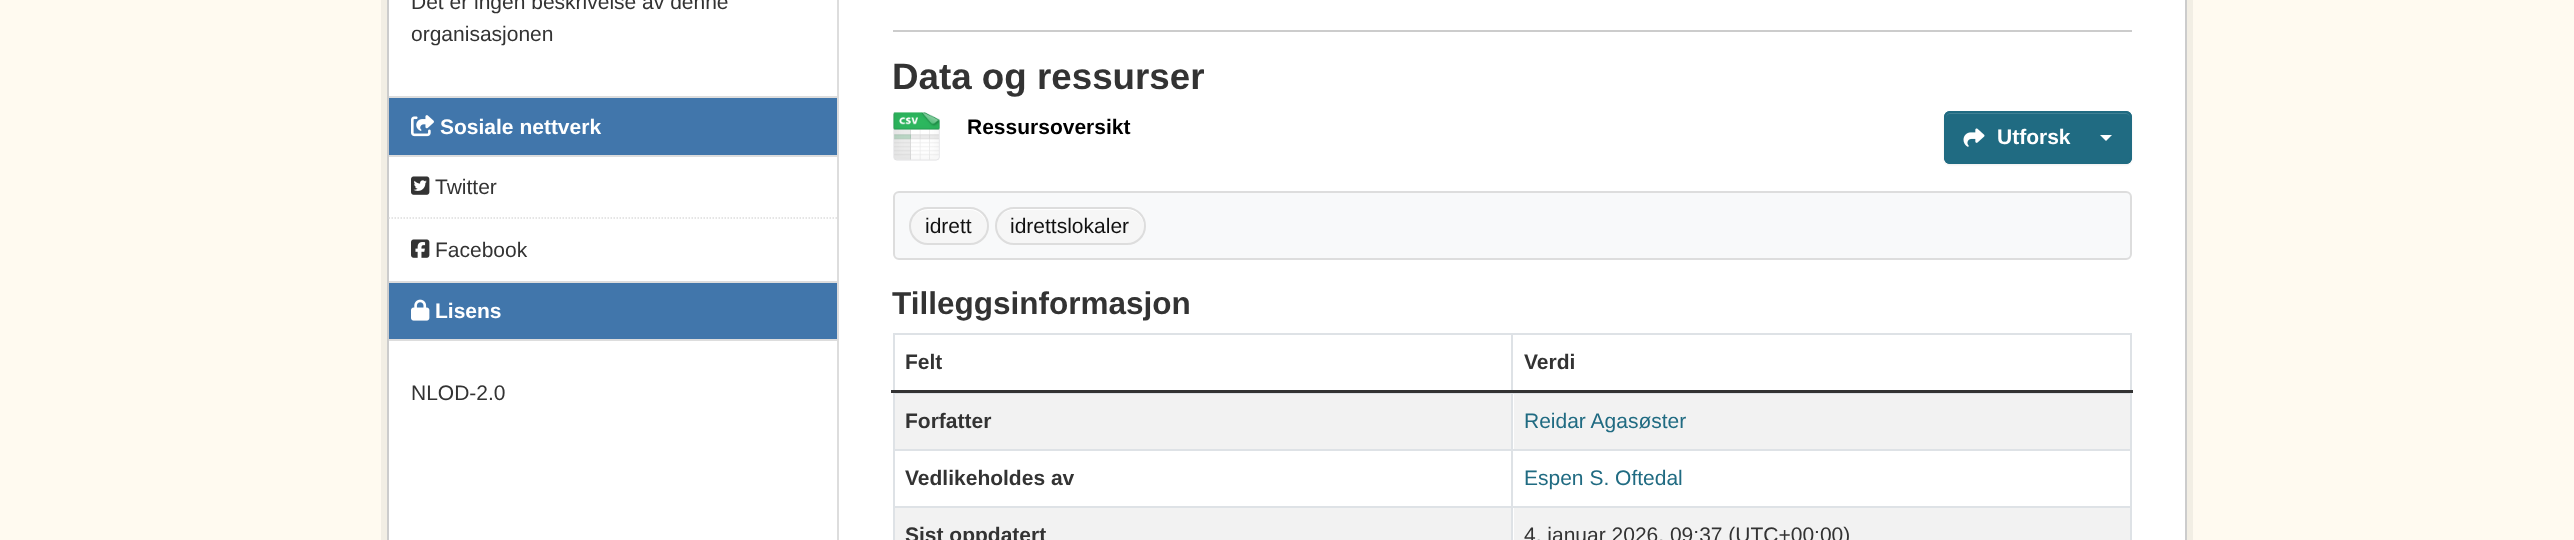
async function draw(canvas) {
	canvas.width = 2574;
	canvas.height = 540;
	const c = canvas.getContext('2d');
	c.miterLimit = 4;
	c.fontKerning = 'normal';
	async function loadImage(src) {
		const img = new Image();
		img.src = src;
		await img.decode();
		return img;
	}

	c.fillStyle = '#fffaf0';
	c.fillRect(0, 0, 2574, 540);
	c.strokeStyle = '#f2eee4';
	c.lineWidth = 6;
	c.strokeRect(384, -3, 1806, 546);
	c.fillStyle = '#fff';
	c.beginPath();
	c.rect(388, -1, 1798, 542);
	c.fill();
	c.strokeStyle = '#ccc';
	c.lineWidth = 2;
	c.stroke();
	c.font = '21px Liberation Sans';
	c.fillStyle = '#333';
	c.fillText('Det er ingen beskrivelse av denne', 411, 9);
	c.fillText('organisasjonen', 411, 41);
	for (const [x, y, w, h, color] of [
		[389, 98, 448, 57, '#4176ab'],
		[389, 96, 448, 2, '#ddd'],
		[389, 155, 448, 2, '#ddd'],
	]) {
		c.fillStyle = color;
		c.fillRect(x, y, w, h);
	}
	c.drawImage(await loadImage('img1.png'), 411, 115, 23, 22);
	c.font = 'bold 21px Liberation Sans';
	c.fillStyle = '#fff';
	c.fillText('Sosiale nettverk', 440, 134);
	c.beginPath();
	c.moveTo(388.5, 218);
	c.lineTo(837, 218);
	c.strokeStyle = '#ddd';
	c.lineWidth = 1.5;
	c.setLineDash([1.5, 1.5]);
	c.stroke();
	c.drawImage(await loadImage('img2.png'), 411, 176, 19, 19);
	c.font = '21px Liberation Sans';
	c.fillStyle = '#333';
	c.fillText('Twitter', 435, 194);
	c.drawImage(await loadImage('img3.png'), 411, 239, 19, 19);
	c.fillText('Facebook', 435, 257);
	for (const [x, y, w, h, color] of [
		[389, 283, 448, 56, '#4176ab'],
		[389, 281, 448, 2, '#ddd'],
		[389, 339, 448, 2, '#ddd'],
	]) {
		c.fillStyle = color;
		c.fillRect(x, y, w, h);
	}
	c.drawImage(await loadImage('img4.png'), 411, 299, 19, 22);
	c.font = 'bold 21px Liberation Sans';
	c.fillStyle = '#fff';
	c.fillText('Lisens', 435, 318);
	c.font = '21px Liberation Sans';
	c.fillStyle = '#333';
	c.fillText('NLOD-2.0', 411, 400);
	c.fillStyle = '#ddd';
	c.fillRect(837, 0, 2, 540);
	c.fillStyle = '#ccc';
	c.fillRect(893, 30, 1239, 2);
	c.font = 'bold 36.75px Liberation Sans';
	c.fillStyle = '#333';
	c.fillText('Data og ressurser', 892, 89);
	c.drawImage(await loadImage('img5.png'), 893, 112, 47, 49);
	c.font = 'bold 21px Liberation Sans';
	c.fillStyle = '#000';
	c.fillText('Ressursoversikt', 967, 134);
	c.fillStyle = '#00000012';
	c.filter = 'blur(1px)';
	c.beginPath();
	c.roundRect(1944, 113, 188, 52, 6);
	c.fill();
	c.filter = 'none';
	c.fillStyle = '#206b82';
	c.beginPath();
	c.roundRect(1944, 111, 188, 53, 6);
	c.fill();
	c.fillStyle = '#418195';
	c.beginPath();
	c.moveTo(1950, 114);
	c.lineTo(2126, 114);
	c.bezierCurveTo(2128, 114, 2130, 116, 2130, 118);
	c.bezierCurveTo(2130, 115, 2128, 113, 2125, 113);
	c.lineTo(1951, 113);
	c.bezierCurveTo(1948, 113, 1946, 115, 1946, 118);
	c.bezierCurveTo(1946, 116, 1948, 114, 1950, 114);
	c.closePath();
	c.fill();
	c.beginPath();
	c.roundRect(1945, 112, 186, 51, 5);
	c.strokeStyle = '#206b82';
	c.lineWidth = 2;
	c.setLineDash([]);
	c.stroke();
	c.drawImage(await loadImage('img6.png'), 1963, 128, 22, 19);
	c.fillStyle = '#fff';
	c.fillText('Utforsk', 1997, 144);
	c.beginPath();
	c.moveTo(2100, 135);
	c.lineTo(2112, 135);
	c.lineTo(2106, 141);
	c.closePath();
	c.fill();
	c.fillStyle = '#f8f9fa';
	c.beginPath();
	c.roundRect(894, 192, 1237, 67, 5);
	c.fill();
	c.strokeStyle = '#ddd';
	c.stroke();
	c.fillStyle = '#f6f6f6';
	c.beginPath();
	c.roundRect(909, 207, 80, 38, 19);
	c.fill();
	c.fillStyle = '#fff';
	c.beginPath();
	c.moveTo(928, 210);
	c.lineTo(970, 210);
	c.bezierCurveTo(979, 210, 987, 218, 987, 227);
	c.lineTo(987, 226);
	c.bezierCurveTo(987, 217, 979, 209, 970, 209);
	c.lineTo(928, 209);
	c.bezierCurveTo(922, 209, 917, 212, 914, 217);
	c.bezierCurveTo(917, 213, 922, 210, 928, 210);
	c.closePath();
	c.fill();
	c.beginPath();
	c.roundRect(910, 208, 78, 36, 18);
	c.stroke();
	c.font = '21px Liberation Sans';
	c.fillStyle = '#111';
	c.fillText('idrett', 925, 233);
	c.fillStyle = '#f6f6f6';
	c.beginPath();
	c.roundRect(995, 207, 151, 38, 19);
	c.fill();
	c.fillStyle = '#fff';
	c.beginPath();
	c.moveTo(1013, 210);
	c.lineTo(1127, 210);
	c.bezierCurveTo(1137, 210, 1144, 218, 1144, 227);
	c.bezierCurveTo(1144, 230, 1143, 234, 1142, 236);
	c.bezierCurveTo(1144, 233, 1145, 230, 1145, 226);
	c.bezierCurveTo(1145, 217, 1137, 209, 1128, 209);
	c.lineTo(1013, 209);
	c.bezierCurveTo(1004, 209, 996, 217, 996, 226);
	c.lineTo(996, 227);
	c.bezierCurveTo(996, 218, 1004, 210, 1013, 210);
	c.closePath();
	c.fill();
	c.beginPath();
	c.roundRect(996, 208, 149, 36, 18);
	c.stroke();
	c.fillStyle = '#111';
	c.fillText('idrettslokaler', 1010, 233);
	c.font = 'bold 31.5px Liberation Sans';
	c.fillStyle = '#333';
	c.fillText('Tilleggsinformasjon', 892, 314);
	c.fillStyle = '#dee2e6';
	c.fillRect(893, 333, 1239, 2);
	c.fillRect(893, 393, 1239, 1);
	c.font = 'bold 21px Liberation Sans';
	c.fillStyle = '#333';
	c.fillText('Felt', 905, 369);
	c.fillText('Verdi', 1524, 369);
	for (const [x, y, w, h, color] of [
		[893, 449, 1239, 2, '#dee2e6'],
		[893, 506, 1239, 2, '#dee2e6'],
		[893, 333, 2, 207, '#dee2e6'],
		[2130, 333, 2, 207, '#dee2e6'],
		[1511, 333, 2, 207, '#dee2e6'],
		[891, 390, 1242, 3, '#333'],
		[895, 394, 616, 55, '#f2f2f2'],
	]) {
		c.fillStyle = color;
		c.fillRect(x, y, w, h);
	}
	c.fillStyle = '#333';
	c.fillText('Forfatter', 905, 428);
	c.fillStyle = '#f2f2f2';
	c.fillRect(1514, 394, 616, 55);
	c.font = '21px Liberation Sans';
	c.fillStyle = '#206b82';
	c.fillText('Reidar Agasøster', 1524, 428);
	c.font = 'bold 21px Liberation Sans';
	c.fillStyle = '#333';
	c.fillText('Vedlikeholdes av', 905, 485);
	c.font = '21px Liberation Sans';
	c.fillStyle = '#206b82';
	c.fillText('Espen S. Oftedal', 1524, 485);
	c.fillStyle = '#f2f2f2';
	c.fillRect(895, 508, 616, 32);
	c.font = 'bold 21px Liberation Sans';
	c.fillStyle = '#333';
	c.fillText('Sist oppdatert', 905, 542);
	c.fillStyle = '#f2f2f2';
	c.fillRect(1514, 508, 616, 32);
	c.font = '21px Liberation Sans';
	c.fillStyle = '#333';
	c.fillText('4. januar 2026, 09:37 (UTC+00:00)', 1524, 542);
}

draw(document.querySelector('canvas'));
